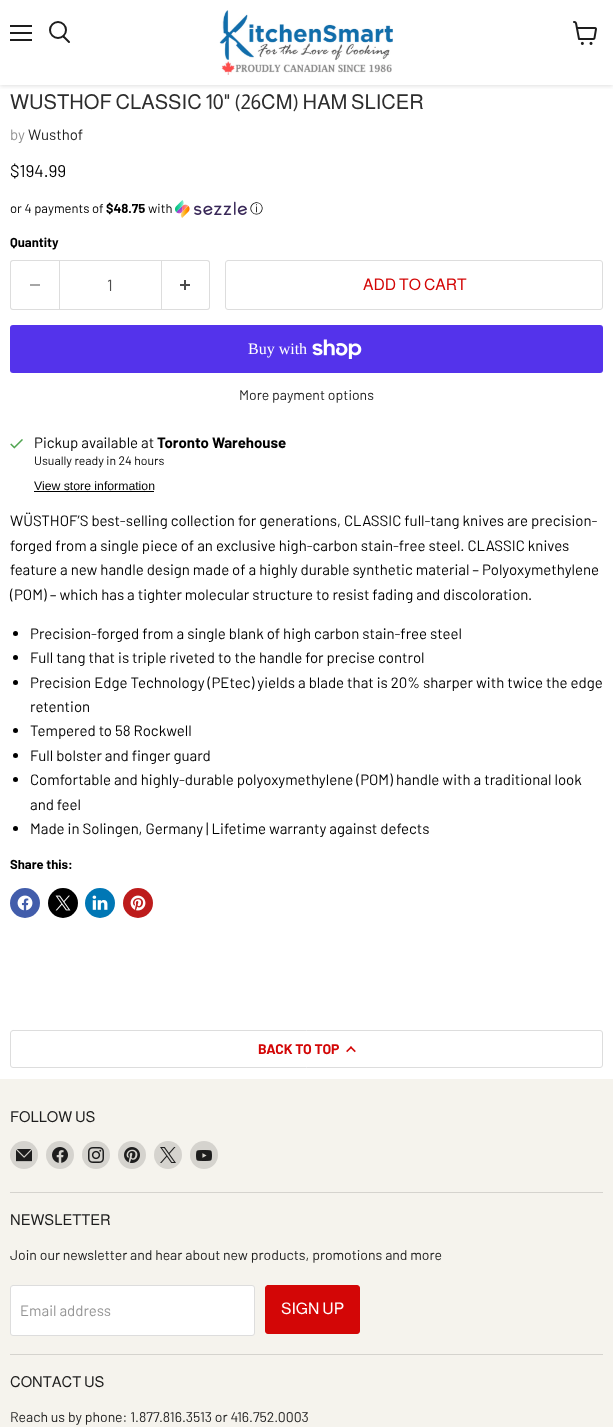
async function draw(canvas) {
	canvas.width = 613;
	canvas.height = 1427;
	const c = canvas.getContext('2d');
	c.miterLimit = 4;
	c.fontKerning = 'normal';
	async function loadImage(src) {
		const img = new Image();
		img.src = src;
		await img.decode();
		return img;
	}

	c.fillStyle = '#fff';
	c.fillRect(0, 0, 613, 1427);
	c.save();
	c.beginPath();
	c.rect(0, 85, 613, 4);
	c.clip();
	c.fillStyle = '#80808040';
	c.filter = 'blur(2px)';
	c.beginPath();
	c.rect(0, 1, 613, 85);
	c.fill();
	c.filter = 'none';
	c.restore();
	for (const [x, y, w, h, color] of [
		[10, 25, 22, 2, '#1d1d1d'],
		[10, 32, 22, 2, '#1d1d1d'],
		[10, 39, 22, 2, '#1d1d1d'],
	]) {
		c.fillStyle = color;
		c.fillRect(x, y, w, h);
	}
	c.beginPath();
	c.moveTo(69, 42);
	c.lineTo(63.5, 36.5);
	c.strokeStyle = '#1d1d1d';
	c.lineWidth = 2;
	c.lineCap = 'round';
	c.stroke();
	c.beginPath();
	c.arc(58, 30, 8, 0, 2 * Math.PI);
	c.stroke();
	c.drawImage(await loadImage('img1.png'), 219, 10, 174, 65);
	c.drawImage(await loadImage('img2.png'), 573, 21, 24, 24);
	c.font = '20.5px Almarai';
	c.fillStyle = '#2d2d2d';
	c.fillText('WUSTHOF CLASSIC 10" (26CM) HAM SLICER', 10, 109);
	c.font = '15px Barlow';
	c.fillStyle = '#949494';
	c.fillText('by', 10, 140);
	c.fillStyle = '#1d1d1d';
	c.fillText('Wusthof', 28, 140);
	c.font = '17px Barlow';
	c.fillStyle = '#000';
	c.fillText('$194.99', 10, 177);
	c.font = '13px Barlow';
	c.fillText('or 4 payments of', 10, 213);
	c.font = 'bold 13px Barlow';
	c.fillText('$48.75', 106, 213);
	c.font = '13px Barlow';
	c.fillText('with', 148, 213);
	c.drawImage(await loadImage('img3.png'), 175, 200, 72, 18);
	c.font = '500 13px WenQuanYi Zen Hei';
	c.fillText('ⓘ', 250, 213);
	c.font = 'bold 13px Barlow';
	c.fillText('Quantity', 10, 247);
	c.fillStyle = '#ddd';
	c.beginPath();
	c.moveTo(13, 260);
	c.lineTo(59, 260);
	c.lineTo(59, 310);
	c.lineTo(13, 310);
	c.bezierCurveTo(11, 310, 10, 309, 10, 307);
	c.lineTo(10, 263);
	c.bezierCurveTo(10, 261, 11, 260, 13, 260);
	c.closePath();
	c.moveTo(13, 261);
	c.lineTo(59, 261);
	c.lineTo(59, 309);
	c.lineTo(13, 309);
	c.bezierCurveTo(12, 309, 11, 308, 11, 307);
	c.lineTo(11, 263);
	c.bezierCurveTo(11, 262, 12, 261, 13, 261);
	c.closePath();
	c.fill('evenodd');
	c.fillStyle = '#a6a6a6';
	c.fillRect(30, 284, 10, 2);
	c.strokeStyle = '#ddd';
	c.lineWidth = 1;
	c.strokeRect(59.5, 260.5, 102, 49);
	c.font = '16px Barlow';
	c.fillStyle = '#4d4d4d';
	c.fillText('1', 107, 291);
	c.fillStyle = '#ddd';
	c.beginPath();
	c.moveTo(162, 260);
	c.lineTo(207, 260);
	c.bezierCurveTo(209, 260, 210, 261, 210, 263);
	c.lineTo(210, 307);
	c.bezierCurveTo(210, 309, 209, 310, 207, 310);
	c.lineTo(162, 310);
	c.closePath();
	c.moveTo(162, 261);
	c.lineTo(207, 261);
	c.bezierCurveTo(208, 261, 209, 262, 209, 263);
	c.lineTo(209, 307);
	c.bezierCurveTo(209, 308, 208, 309, 207, 309);
	c.lineTo(162, 309);
	c.closePath();
	c.fill('evenodd');
	c.drawImage(await loadImage('img4.png'), 180, 280, 10, 10);
	c.beginPath();
	c.roundRect(225.5, 260.5, 377, 49, 2.5);
	c.stroke();
	c.font = '16px Almarai';
	c.fillStyle = '#d30606';
	c.fillText('ADD TO CART', 363, 290);
	c.fillStyle = '#5433eb';
	c.beginPath();
	c.roundRect(10, 325, 593, 48, 3);
	c.fill();
	c.font = '16px Liberation Serif';
	c.fillStyle = '#fff';
	c.fillText('Buy with', 248, 354);
	c.drawImage(await loadImage('img5.png'), 312, 339, 50, 20);
	c.font = '14.05px Barlow';
	c.fillStyle = '#1d1d1d';
	c.fillText('More payment options', 239, 400);
	c.drawImage(await loadImage('img6.png'), 10, 439, 13, 10);
	c.font = '15px Barlow';
	c.fillStyle = '#000';
	c.fillText('Pickup available at', 34, 448);
	c.font = 'bold 15px Barlow';
	c.fillText('Toronto Warehouse', 157, 448);
	c.font = '12.25px Barlow';
	c.fillText('Usually ready in 24 hours', 34, 465);
	c.font = '12.25px Liberation Sans';
	c.fillText('View store information', 34, 490);
	c.fillRect(34, 491, 120, 1);
	c.font = '15px Barlow';
	for (const [text, x, y] of [
		['WÜSTHOF’S best-selling collection for generations, CLASSIC full-tang knives are precision-', 10, 526],
		['forged from a single piece of an exclusive high-carbon stain-free steel. CLASSIC knives', 10, 551],
		['feature a new handle design made of a highly durable synthetic material – Polyoxymethylene', 10, 575],
		['(POM) – which has a tighter molecular structure to resist fading and discoloration.', 10, 600],
	]) {
		c.fillText(text, x, y);
	}
	c.beginPath();
	c.arc(15.5, 633.5, 2.5, 0, 2 * Math.PI);
	c.fill();
	c.fillText('Precision-forged from a single blank of high carbon stain-free steel', 30, 639);
	c.beginPath();
	c.arc(15.5, 657.5, 2.5, 0, 2 * Math.PI);
	c.fill();
	c.fillText('Full tang that is triple riveted to the handle for precise control', 30, 663);
	c.beginPath();
	c.arc(15.5, 682.5, 2.5, 0, 2 * Math.PI);
	c.fill();
	c.fillText('Precision Edge Technology (PEtec) yields a blade that is 20% sharper with twice the edge', 30, 688);
	c.fillText('retention', 30, 712);
	c.beginPath();
	c.arc(15.5, 730.5, 2.5, 0, 2 * Math.PI);
	c.fill();
	c.fillText('Tempered to 58 Rockwell', 30, 736);
	c.beginPath();
	c.arc(15.5, 755.5, 2.5, 0, 2 * Math.PI);
	c.fill();
	c.fillText('Full bolster and finger guard', 30, 761);
	c.beginPath();
	c.arc(15.5, 779.5, 2.5, 0, 2 * Math.PI);
	c.fill();
	c.fillText('Comfortable and highly-durable polyoxymethylene (POM) handle with a traditional look', 30, 785);
	c.fillText('and feel', 30, 810);
	c.beginPath();
	c.arc(15.5, 828.5, 2.5, 0, 2 * Math.PI);
	c.fill();
	c.fillText('Made in Solingen, Germany | Lifetime warranty against defects', 30, 834);
	c.font = 'bold 13px Barlow';
	c.fillText('Share this:', 10, 869);
	c.fillStyle = '#425dab';
	c.beginPath();
	c.arc(25, 903, 15, 0, 2 * Math.PI);
	c.fill();
	c.drawImage(await loadImage('img7.png'), 17, 895, 16, 16);
	c.fillStyle = '#000';
	c.beginPath();
	c.arc(63, 903, 15, 0, 2 * Math.PI);
	c.fill();
	c.drawImage(await loadImage('img8.png'), 55, 895, 16, 16);
	c.fillStyle = '#0077b5';
	c.beginPath();
	c.arc(100, 903, 15, 0, 2 * Math.PI);
	c.fill();
	c.drawImage(await loadImage('img9.png'), 92, 895, 16, 15);
	c.fillStyle = '#bd1c1c';
	c.beginPath();
	c.arc(138, 903, 15, 0, 2 * Math.PI);
	c.fill();
	c.drawImage(await loadImage('img10.png'), 130, 895, 16, 16);
	c.beginPath();
	c.roundRect(10.5, 1030.5, 592, 37, 2.5);
	c.stroke();
	c.font = 'bold 14px Barlow';
	c.fillStyle = '#d30606';
	c.fillText('BACK TO TOP', 258, 1054);
	c.drawImage(await loadImage('img11.png'), 346, 1046, 10, 7);
	c.fillStyle = '#f5f3ed';
	c.fillRect(0, 1079, 613, 348);
	c.fillStyle = '#d5d3ce';
	c.fillRect(10, 1192, 593, 1);
	c.font = '15px Almarai';
	c.fillStyle = '#1d1d1d';
	c.fillText('FOLLOW US', 10, 1122);
	c.fillStyle = '#d5d3ce';
	c.beginPath();
	c.arc(24, 1155, 14, 0, 2 * Math.PI);
	c.fill();
	c.drawImage(await loadImage('img12.png'), 16, 1149, 16, 13);
	c.beginPath();
	c.arc(60, 1155, 14, 0, 2 * Math.PI);
	c.fill();
	c.drawImage(await loadImage('img13.png'), 52, 1147, 16, 16);
	c.beginPath();
	c.arc(96, 1155, 14, 0, 2 * Math.PI);
	c.fill();
	c.drawImage(await loadImage('img14.png'), 88, 1147, 16, 16);
	c.beginPath();
	c.arc(132, 1155, 14, 0, 2 * Math.PI);
	c.fill();
	c.drawImage(await loadImage('img15.png'), 124, 1147, 16, 16);
	c.beginPath();
	c.arc(168, 1155, 14, 0, 2 * Math.PI);
	c.fill();
	c.drawImage(await loadImage('img16.png'), 160, 1147, 16, 16);
	c.beginPath();
	c.arc(204, 1155, 14, 0, 2 * Math.PI);
	c.fill();
	c.drawImage(await loadImage('img17.png'), 196, 1150, 16, 11);
	c.fillRect(10, 1354, 593, 1);
	c.fillStyle = '#1d1d1d';
	c.fillText('NEWSLETTER', 10, 1225);
	c.font = '14.05px Barlow';
	c.fillText('Join our newsletter and hear about new products, promotions and more', 10, 1260);
	c.fillStyle = '#fff';
	c.beginPath();
	c.roundRect(10.5, 1285.5, 244, 50, 2.5);
	c.fill();
	c.stroke();
	c.font = '15px Barlow';
	c.fillStyle = '#949494';
	c.fillText('Email address', 20, 1316);
	c.fillStyle = '#d30606';
	c.beginPath();
	c.roundRect(265.5, 1285.5, 94, 48, 2.5);
	c.fill();
	c.strokeStyle = '#d30606';
	c.stroke();
	c.font = '16px Almarai';
	c.fillStyle = '#fff';
	c.fillText('SIGN UP', 281, 1314);
	c.font = '15px Almarai';
	c.fillStyle = '#1d1d1d';
	c.fillText('CONTACT US', 10, 1387);
	c.font = '14.05px Barlow';
	c.fillText('Reach us by phone: 1.877.816.3513 or 416.752.0003', 10, 1422);
}

draw(document.querySelector('canvas'));
